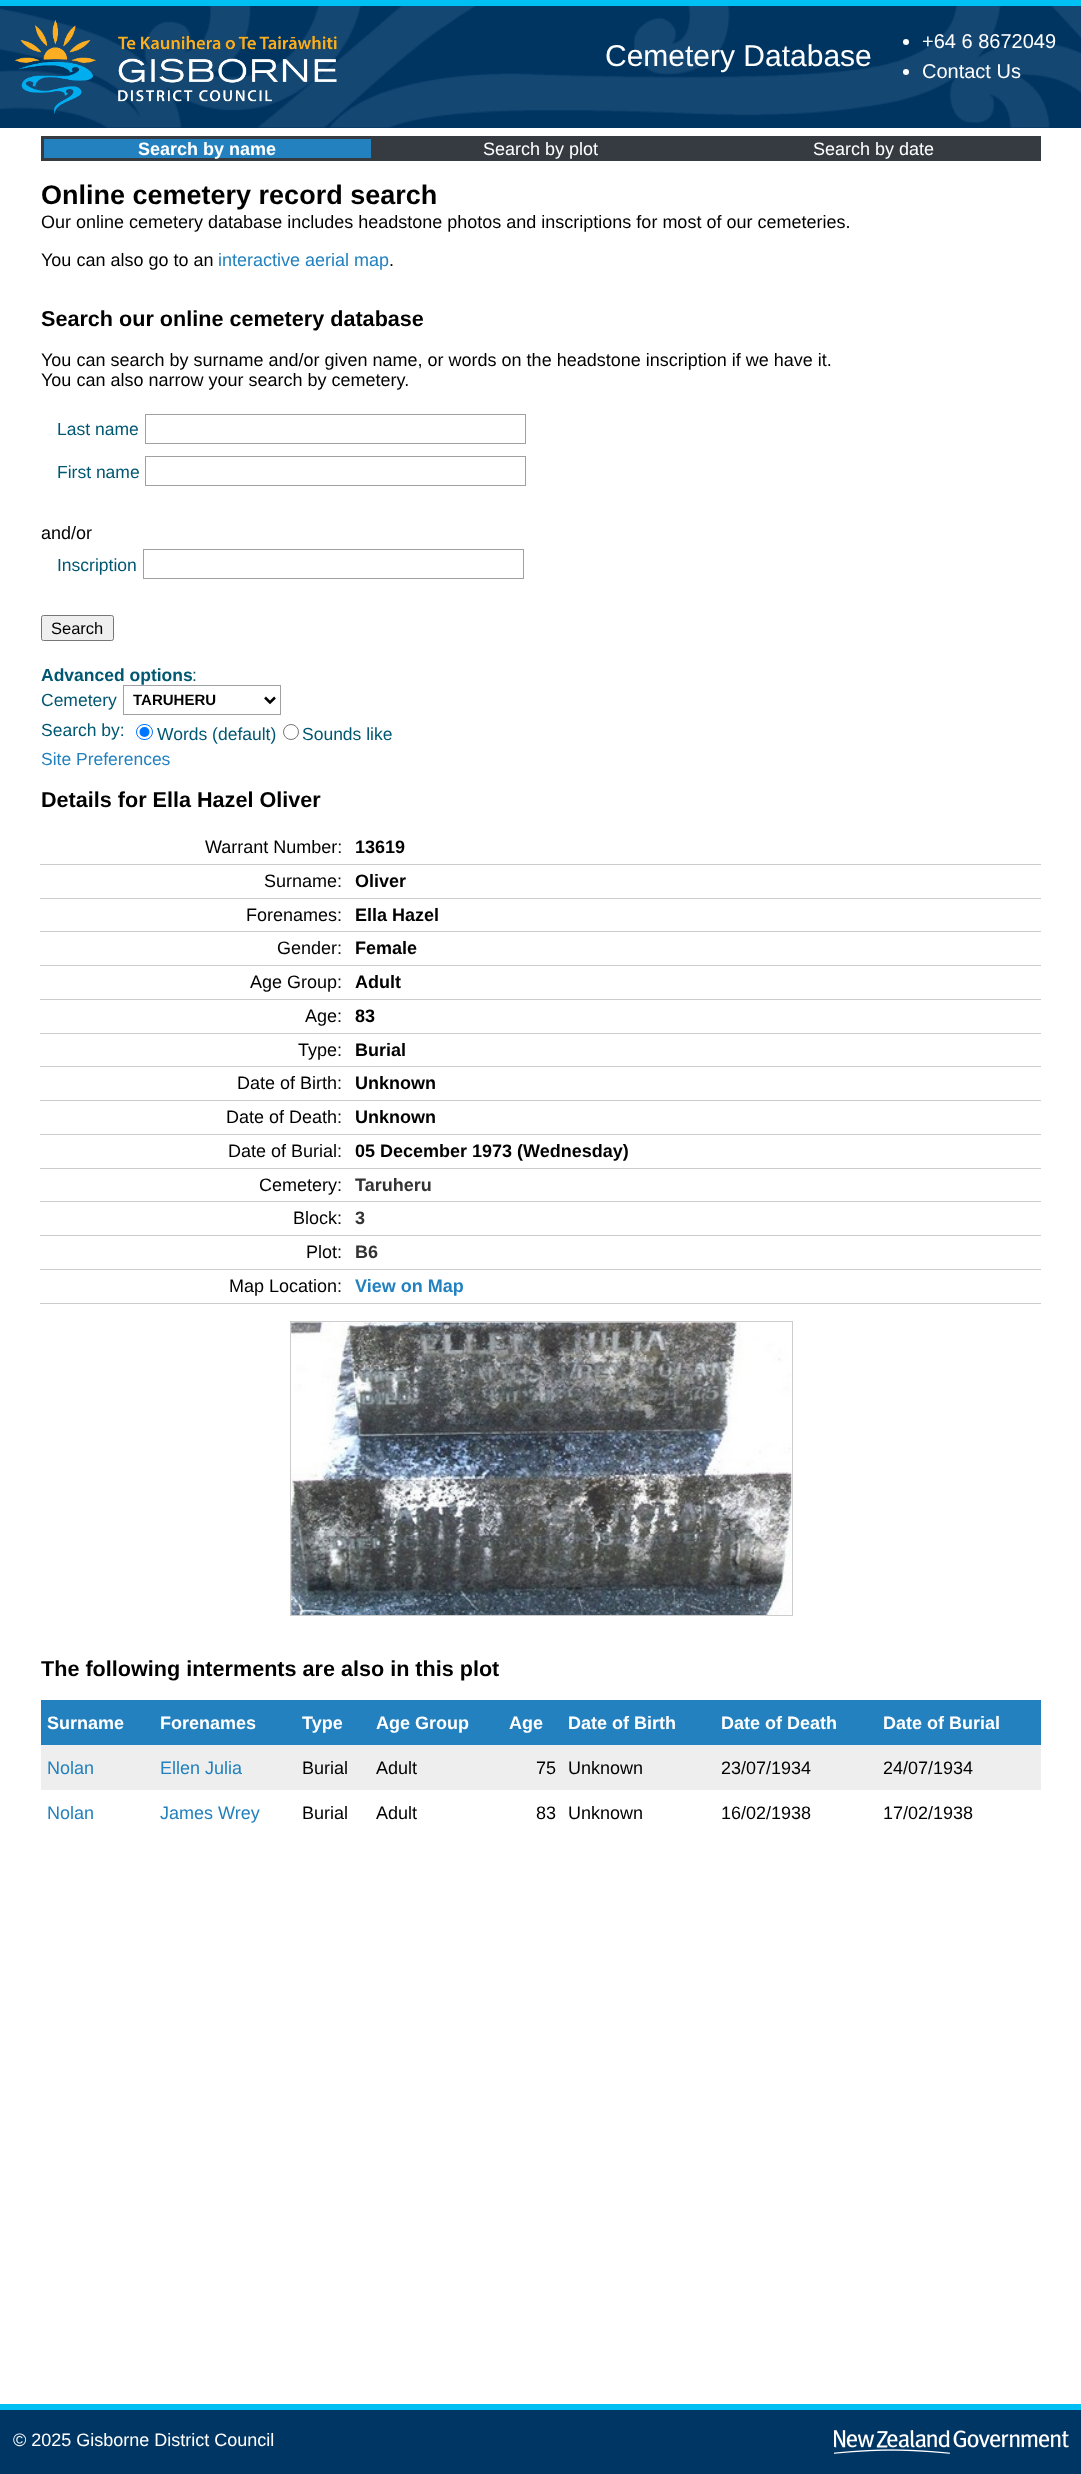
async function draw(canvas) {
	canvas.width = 1081;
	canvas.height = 2474;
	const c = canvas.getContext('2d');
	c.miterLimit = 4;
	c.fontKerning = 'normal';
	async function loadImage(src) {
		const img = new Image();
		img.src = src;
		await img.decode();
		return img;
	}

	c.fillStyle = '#fff';
	c.fillRect(0, 0, 1081, 2474);
	c.fillStyle = '#003562';
	c.fillRect(0, 127, 1081, 1);
	c.drawImage(await loadImage('img1.png'), 0, 6, 1081, 122);
	c.fillStyle = '#00c0f3';
	c.fillRect(0, 0, 1081, 6);
	c.drawImage(await loadImage('img2.png'), 15, 20, 81, 94);
	c.drawImage(await loadImage('img3.png'), 118, 35, 219, 67);
	c.font = '30px Liberation Sans';
	c.fillStyle = '#fff';
	c.fillText('Cemetery Database', 605, 66);
	c.beginPath();
	c.arc(906, 42, 3, 0, 2 * Math.PI);
	c.fill();
	c.font = '20px Liberation Sans';
	c.fillText('+64 6 8672049', 922, 48);
	c.beginPath();
	c.arc(906, 72, 3, 0, 2 * Math.PI);
	c.fill();
	c.fillText('Contact Us', 922, 78);
	c.fillStyle = '#353b41';
	c.fillRect(374, 136, 667, 25);
	c.fillStyle = '#2281be';
	c.beginPath();
	c.rect(42.5, 137.5, 330, 22);
	c.fill();
	c.strokeStyle = '#353b41';
	c.lineWidth = 3;
	c.stroke();
	c.font = 'bold 18px Liberation Sans';
	c.fillStyle = '#fff';
	c.fillText('Search by name', 138, 155);
	c.font = '18px Liberation Sans';
	c.fillText('Search by plot', 483, 155);
	c.fillText('Search by date', 813, 155);
	c.font = 'bold 27px Liberation Sans';
	c.fillStyle = '#000';
	c.fillText('Online cemetery record search', 41, 204);
	c.font = '18px Liberation Sans';
	c.fillText('Our online cemetery database includes headstone photos and inscriptions for most of our cemeteries.', 41, 228);
	c.fillText('You can also go to an', 41, 266);
	c.fillStyle = '#2281be';
	c.fillText('interactive aerial map', 218, 266);
	c.fillStyle = '#000';
	c.fillText('.', 389, 266);
	c.font = 'bold 21.6px Liberation Sans';
	c.fillText('Search our online cemetery database', 41, 326);
	c.font = '18px Liberation Sans';
	c.fillText('You can search by surname and/or given name, or words on the headstone inscription if we have it.', 41, 366);
	c.fillText('You can also narrow your search by cemetery.', 41, 386);
	c.font = '17.5px Liberation Sans';
	c.fillStyle = '#005771';
	c.fillText('Last name', 57, 435);
	c.strokeStyle = '#9ea0a1';
	c.lineWidth = 1;
	c.strokeRect(145.5, 414.5, 380, 29);
	c.fillText('First name', 57, 478);
	c.strokeRect(145.5, 456.5, 380, 29);
	c.font = '18px Liberation Sans';
	c.fillStyle = '#000';
	c.fillText('and/or', 41, 539);
	c.font = '17.5px Liberation Sans';
	c.fillStyle = '#005771';
	c.fillText('Inscription', 57, 571);
	c.strokeRect(143.5, 549.5, 380, 29);
	c.fillStyle = '#efefef';
	c.beginPath();
	c.roundRect(41.5, 615.5, 72, 25, 2);
	c.fill();
	c.strokeStyle = '#767676';
	c.stroke();
	c.font = '16.5px Liberation Sans';
	c.fillStyle = '#000';
	c.fillText('Search', 51, 634);
	c.font = 'bold 17.5px Liberation Sans';
	c.fillStyle = '#005771';
	c.fillText('Advanced options', 41, 681);
	c.font = '17.5px Liberation Sans';
	c.fillText(':', 192, 681);
	c.fillText('Cemetery', 41, 706);
	c.strokeStyle = '#9ea0a1';
	c.strokeRect(123.5, 685.5, 157, 29);
	c.beginPath();
	c.moveTo(265, 697.5);
	c.lineTo(270, 702.5);
	c.lineTo(275, 697.5);
	c.strokeStyle = '#000';
	c.lineWidth = 2.5;
	c.stroke();
	c.font = 'bold 15px Liberation Sans';
	c.fillStyle = '#000';
	c.fillText('TARUHERU', 133, 705);
	c.font = '17.5px Liberation Sans';
	c.fillStyle = '#005771';
	c.fillText('Search by:', 41, 736);
	c.beginPath();
	c.roundRect(136.5, 724.5, 16, 15, 7.5);
	c.strokeStyle = '#0075ff';
	c.lineWidth = 1;
	c.stroke();
	c.fillStyle = '#0075ff';
	c.beginPath();
	c.arc(144.5, 732, 5, 0, 2 * Math.PI);
	c.fill();
	c.fillStyle = '#005771';
	c.fillText('Words (default)', 157, 740);
	c.beginPath();
	c.arc(291, 732, 7.5, 0, 2 * Math.PI);
	c.strokeStyle = '#767676';
	c.stroke();
	c.fillText('Sounds like', 302, 740);
	c.fillStyle = '#2281be';
	c.fillText('Site Preferences', 41, 765);
	c.font = 'bold 21.6px Liberation Sans';
	c.fillStyle = '#000';
	c.fillText('Details for Ella Hazel Oliver', 41, 807);
	c.font = '18px Liberation Sans';
	c.fillText('Warrant Number:', 205, 853);
	c.font = 'bold 18px Liberation Sans';
	c.fillText('13619', 355, 853);
	c.font = '18px Liberation Sans';
	c.fillText('Surname:', 264, 887);
	c.fillStyle = '#ccc';
	c.fillRect(40, 864, 1001, 1);
	c.font = 'bold 18px Liberation Sans';
	c.fillStyle = '#000';
	c.fillText('Oliver', 355, 887);
	c.font = '18px Liberation Sans';
	c.fillText('Forenames:', 246, 921);
	c.fillStyle = '#ccc';
	c.fillRect(40, 898, 1001, 1);
	c.font = 'bold 18px Liberation Sans';
	c.fillStyle = '#000';
	c.fillText('Ella Hazel', 355, 921);
	c.font = '18px Liberation Sans';
	c.fillText('Gender:', 277, 954);
	c.fillStyle = '#ccc';
	c.fillRect(40, 931, 1001, 1);
	c.font = 'bold 18px Liberation Sans';
	c.fillStyle = '#000';
	c.fillText('Female', 355, 954);
	c.font = '18px Liberation Sans';
	c.fillText('Age Group:', 250, 988);
	c.fillStyle = '#ccc';
	c.fillRect(40, 965, 1001, 1);
	c.font = 'bold 18px Liberation Sans';
	c.fillStyle = '#000';
	c.fillText('Adult', 355, 988);
	c.font = '18px Liberation Sans';
	c.fillText('Age:', 305, 1022);
	c.fillStyle = '#ccc';
	c.fillRect(40, 999, 1001, 1);
	c.font = 'bold 18px Liberation Sans';
	c.fillStyle = '#000';
	c.fillText('83', 355, 1022);
	c.font = '18px Liberation Sans';
	c.fillText('Type:', 298, 1056);
	c.fillStyle = '#ccc';
	c.fillRect(40, 1033, 1001, 1);
	c.font = 'bold 18px Liberation Sans';
	c.fillStyle = '#000';
	c.fillText('Burial', 355, 1056);
	c.font = '18px Liberation Sans';
	c.fillText('Date of Birth:', 237, 1089);
	c.fillStyle = '#ccc';
	c.fillRect(40, 1066, 1001, 1);
	c.font = 'bold 18px Liberation Sans';
	c.fillStyle = '#000';
	c.fillText('Unknown', 355, 1089);
	c.font = '18px Liberation Sans';
	c.fillText('Date of Death:', 226, 1123);
	c.fillStyle = '#ccc';
	c.fillRect(40, 1100, 1001, 1);
	c.font = 'bold 18px Liberation Sans';
	c.fillStyle = '#000';
	c.fillText('Unknown', 355, 1123);
	c.font = '18px Liberation Sans';
	c.fillText('Date of Burial:', 228, 1157);
	c.fillStyle = '#ccc';
	c.fillRect(40, 1134, 1001, 1);
	c.font = 'bold 18px Liberation Sans';
	c.fillStyle = '#000';
	c.fillText('05 December 1973 (Wednesday)', 355, 1157);
	c.font = '18px Liberation Sans';
	c.fillText('Cemetery:', 259, 1191);
	c.fillStyle = '#ccc';
	c.fillRect(40, 1168, 1001, 1);
	c.font = 'bold 18px Liberation Sans';
	c.fillStyle = '#333';
	c.fillText('Taruheru', 355, 1191);
	c.font = '18px Liberation Sans';
	c.fillStyle = '#000';
	c.fillText('Block:', 293, 1224);
	c.fillStyle = '#ccc';
	c.fillRect(40, 1201, 1001, 1);
	c.font = 'bold 18px Liberation Sans';
	c.fillStyle = '#333';
	c.fillText('3', 355, 1224);
	c.font = '18px Liberation Sans';
	c.fillStyle = '#000';
	c.fillText('Plot:', 306, 1258);
	c.fillStyle = '#ccc';
	c.fillRect(40, 1235, 1001, 1);
	c.font = 'bold 18px Liberation Sans';
	c.fillStyle = '#333';
	c.fillText('B6', 355, 1258);
	c.font = '18px Liberation Sans';
	c.fillStyle = '#000';
	c.fillText('Map Location:', 229, 1292);
	c.fillStyle = '#ccc';
	c.fillRect(40, 1269, 1001, 1);
	c.fillRect(40, 1303, 1001, 1);
	c.font = 'bold 18px Liberation Sans';
	c.fillStyle = '#2281be';
	c.fillText('View on Map', 355, 1292);
	c.strokeStyle = '#ccc';
	c.strokeRect(290.5, 1321.5, 502, 294);
	c.drawImage(await loadImage('img4.png'), 291, 1322, 501, 293);
	c.save();
	c.beginPath();
	c.rect(41, 1638, 1000, 62);
	c.clip();
	c.font = 'bold 21.6px Liberation Sans';
	c.fillStyle = '#000';
	c.fillText('The following interments are also in this plot', 41, 1676);
	c.restore();
	c.fillRect(41, 1700, 1000, 45);
	c.fillStyle = '#fff';
	for (const [text, x, y] of [
		['Surname', 47, 1729],
		['Forenames', 160, 1729],
		['Type', 302, 1729],
		['Age Group', 376, 1729],
		['Age', 509, 1729],
		['Date of Birth', 568, 1729],
		['Date of Death', 721, 1729],
		['Date of Burial', 883, 1729],
	]) {
		c.fillText(text, x, y);
	}
	c.fillStyle = '#eee';
	c.fillRect(41, 1745, 1000, 45);
	c.font = '18px Liberation Sans';
	c.fillStyle = '#2281be';
	c.fillText('Nolan', 47, 1774);
	c.fillText('Ellen Julia', 160, 1774);
	c.fillStyle = '#000';
	for (const [text, x, y] of [
		['Burial', 302, 1774],
		['Adult', 376, 1774],
		['75', 536, 1774],
		['Unknown', 568, 1774],
		['23/07/1934', 721, 1774],
		['24/07/1934', 883, 1774],
	]) {
		c.fillText(text, x, y);
	}
	c.fillStyle = '#2281be';
	c.fillText('Nolan', 47, 1819);
	c.fillText('James Wrey', 160, 1819);
	c.fillStyle = '#000';
	for (const [text, x, y] of [
		['Burial', 302, 1819],
		['Adult', 376, 1819],
		['83', 536, 1819],
		['Unknown', 568, 1819],
		['16/02/1938', 721, 1819],
		['17/02/1938', 883, 1819],
	]) {
		c.fillText(text, x, y);
	}
	c.fillStyle = '#003664';
	c.fillRect(0, 2410, 1081, 64);
	c.fillStyle = '#00c0f3';
	c.fillRect(0, 2404, 1081, 6);
	c.fillStyle = '#fff';
	c.fillText('© 2025 Gisborne District Council', 13, 2446);
	c.drawImage(await loadImage('img5.png'), 834, 2430, 235, 24);
}

draw(document.querySelector('canvas'));
